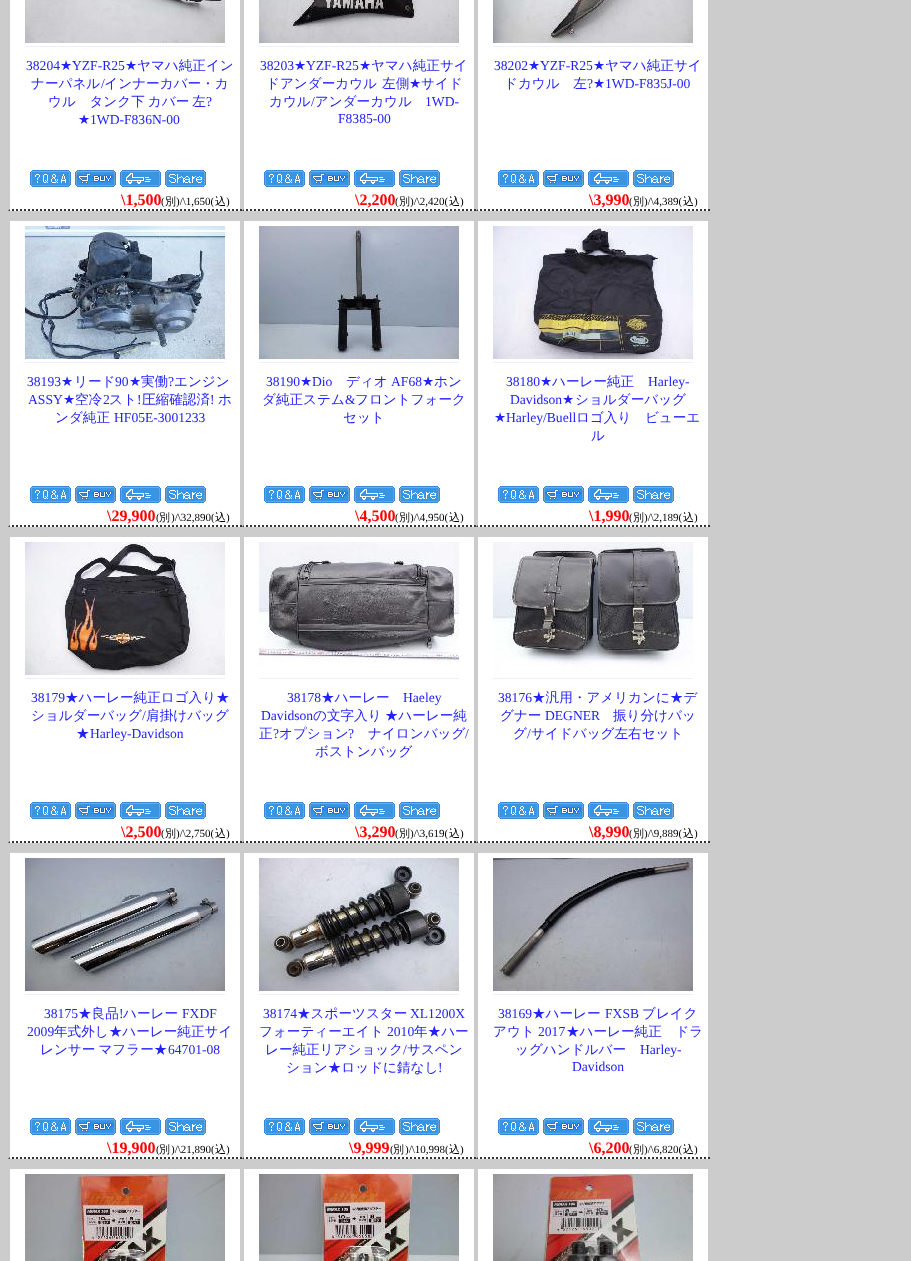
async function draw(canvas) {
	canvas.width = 911;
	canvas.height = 1261;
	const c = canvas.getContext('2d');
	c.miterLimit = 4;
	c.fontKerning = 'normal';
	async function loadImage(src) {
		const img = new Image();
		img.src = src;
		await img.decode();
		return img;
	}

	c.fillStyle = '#ccc';
	c.fillRect(0, 0, 911, 1261);
	c.fillStyle = '#fff';
	c.fillRect(10, 0, 230, 211);
	c.beginPath();
	c.moveTo(8, 210);
	c.lineTo(242, 210);
	c.strokeStyle = '#333';
	c.lineWidth = 2;
	c.setLineDash([2, 2]);
	c.stroke();
	c.fillStyle = '#ccc';
	c.beginPath();
	c.moveTo(8, 211);
	c.lineTo(8, -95);
	c.lineTo(10, -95);
	c.lineTo(10, 209);
	c.closePath();
	c.fill();
	c.fillStyle = '#eef';
	c.fillRect(25, 46, 200, 1);
	c.drawImage(await loadImage('img1.png'), 25, 0, 200, 43);
	c.font = '13.6px Liberation Serif';
	c.fillStyle = '#22f';
	c.fillText('38204', 26, 70);
	c.font = '13.6px DejaVu Sans';
	c.fillText('★', 60, 70);
	c.font = '13.6px Liberation Serif';
	c.fillText('YZF-R25', 72, 70);
	c.font = '13.6px DejaVu Sans';
	c.fillText('★', 125, 70);
	c.font = '500 13.6px WenQuanYi Zen Hei';
	c.fillText('ヤマハ純正イン', 137, 70);
	c.fillText('ナーパネル インナーカバー・カ', 31, 88);
	c.font = '13.6px Liberation Serif';
	c.fillText('/', 101, 88);
	c.wordSpacing = '-1px';
	c.font = '500 13.6px WenQuanYi Zen Hei';
	c.fillText('ウル　タンク下 カバー 左', 48, 106);
	c.wordSpacing = '0px';
	c.font = '13.6px Liberation Serif';
	c.fillText('?', 206, 106);
	c.font = '13.6px DejaVu Sans';
	c.fillText('★', 78, 124);
	c.font = '13.6px Liberation Serif';
	c.fillText('1WD-F836N-00', 90, 124);
	c.drawImage(await loadImage('img2.png'), 30, 170, 41, 17);
	c.drawImage(await loadImage('img3.png'), 75, 170, 41, 17);
	c.drawImage(await loadImage('img4.png'), 120, 170, 41, 17);
	c.drawImage(await loadImage('img5.png'), 165, 170, 41, 17);
	c.font = 'bold 16px Liberation Serif';
	c.fillStyle = '#f00';
	c.fillText('\\1,500', 121, 205);
	c.font = '11px Liberation Serif';
	c.fillStyle = '#000';
	c.fillText('(', 161, 205);
	c.font = '500 11px WenQuanYi Zen Hei';
	c.fillText('別', 165, 205);
	c.font = '11px Liberation Serif';
	c.fillText(')/\\1,650(', 176, 205);
	c.font = '500 11px WenQuanYi Zen Hei';
	c.fillText('込', 215, 205);
	c.font = '11px Liberation Serif';
	c.fillText(')', 226, 205);
	c.fillStyle = '#fff';
	c.fillRect(244, 0, 230, 211);
	c.beginPath();
	c.moveTo(242, 210);
	c.lineTo(476, 210);
	c.stroke();
	c.fillStyle = '#ccc';
	c.beginPath();
	c.moveTo(242, 211);
	c.lineTo(242, -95);
	c.lineTo(244, -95);
	c.lineTo(244, 209);
	c.closePath();
	c.fill();
	c.fillStyle = '#eef';
	c.fillRect(259, 46, 200, 1);
	c.drawImage(await loadImage('img6.png'), 259, 0, 200, 43);
	c.font = '13.6px Liberation Serif';
	c.fillStyle = '#22f';
	c.fillText('38203', 260, 70);
	c.font = '13.6px DejaVu Sans';
	c.fillText('★', 294, 70);
	c.font = '13.6px Liberation Serif';
	c.fillText('YZF-R25', 306, 70);
	c.font = '13.6px DejaVu Sans';
	c.fillText('★', 359, 70);
	c.font = '500 13.6px WenQuanYi Zen Hei';
	c.fillText('ヤマハ純正サイ', 371, 70);
	c.wordSpacing = '1px';
	c.fillText('ドアンダーカウル 左側', 266, 88);
	c.wordSpacing = '0px';
	c.font = '13.6px DejaVu Sans';
	c.fillText('★', 409, 88);
	c.font = '500 13.6px WenQuanYi Zen Hei';
	c.fillText('サイド', 421, 88);
	c.fillText('カウル アンダーカウル', 269, 106);
	c.font = '13.6px Liberation Serif';
	for (const [text, x, y] of [
		['/', 311, 106],
		['1WD-', 425, 106],
		['F8385-00', 338, 123],
	]) {
		c.fillText(text, x, y);
	}
	c.drawImage(await loadImage('img2.png'), 264, 170, 41, 17);
	c.drawImage(await loadImage('img3.png'), 309, 170, 41, 17);
	c.drawImage(await loadImage('img4.png'), 354, 170, 41, 17);
	c.drawImage(await loadImage('img5.png'), 399, 170, 41, 17);
	c.font = 'bold 16px Liberation Serif';
	c.fillStyle = '#f00';
	c.fillText('\\2,200', 355, 205);
	c.font = '11px Liberation Serif';
	c.fillStyle = '#000';
	c.fillText('(', 395, 205);
	c.font = '500 11px WenQuanYi Zen Hei';
	c.fillText('別', 399, 205);
	c.font = '11px Liberation Serif';
	c.fillText(')/\\2,420(', 410, 205);
	c.font = '500 11px WenQuanYi Zen Hei';
	c.fillText('込', 449, 205);
	c.font = '11px Liberation Serif';
	c.fillText(')', 460, 205);
	c.fillStyle = '#fff';
	c.fillRect(478, 0, 230, 211);
	c.beginPath();
	c.moveTo(476, 210);
	c.lineTo(710, 210);
	c.stroke();
	c.fillStyle = '#ccc';
	c.beginPath();
	c.moveTo(476, 211);
	c.lineTo(476, -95);
	c.lineTo(478, -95);
	c.lineTo(478, 209);
	c.closePath();
	c.fill();
	c.fillStyle = '#eef';
	c.fillRect(493, 46, 200, 1);
	c.drawImage(await loadImage('img7.png'), 493, 0, 200, 43);
	c.font = '13.6px Liberation Serif';
	c.fillStyle = '#22f';
	c.fillText('38202', 494, 70);
	c.font = '13.6px DejaVu Sans';
	c.fillText('★', 528, 70);
	c.font = '13.6px Liberation Serif';
	c.fillText('YZF-R25', 540, 70);
	c.font = '13.6px DejaVu Sans';
	c.fillText('★', 593, 70);
	c.font = '500 13.6px WenQuanYi Zen Hei';
	c.fillText('ヤマハ純正サイ', 605, 70);
	c.fillText('ドカウル　左', 504, 88);
	c.font = '13.6px Liberation Serif';
	c.fillText('?', 587, 88);
	c.font = '13.6px DejaVu Sans';
	c.fillText('★', 593, 88);
	c.font = '13.6px Liberation Serif';
	c.fillText('1WD-F835J-00', 605, 88);
	c.drawImage(await loadImage('img2.png'), 498, 170, 41, 17);
	c.drawImage(await loadImage('img3.png'), 543, 170, 41, 17);
	c.drawImage(await loadImage('img4.png'), 588, 170, 41, 17);
	c.drawImage(await loadImage('img5.png'), 633, 170, 41, 17);
	c.font = 'bold 16px Liberation Serif';
	c.fillStyle = '#f00';
	c.fillText('\\3,990', 589, 205);
	c.font = '11px Liberation Serif';
	c.fillStyle = '#000';
	c.fillText('(', 629, 205);
	c.font = '500 11px WenQuanYi Zen Hei';
	c.fillText('別', 633, 205);
	c.font = '11px Liberation Serif';
	c.fillText(')/\\4,389(', 644, 205);
	c.font = '500 11px WenQuanYi Zen Hei';
	c.fillText('込', 683, 205);
	c.font = '11px Liberation Serif';
	c.fillText(')', 694, 205);
	c.fillStyle = '#fff';
	c.fillRect(10, 221, 230, 306);
	c.beginPath();
	c.moveTo(8, 526);
	c.lineTo(242, 526);
	c.stroke();
	c.fillStyle = '#ccc';
	c.beginPath();
	c.moveTo(8, 527);
	c.lineTo(8, 221);
	c.lineTo(10, 221);
	c.lineTo(10, 525);
	c.closePath();
	c.fill();
	c.fillStyle = '#eef';
	c.fillRect(25, 362, 200, 1);
	c.drawImage(await loadImage('img8.png'), 25, 226, 200, 133);
	c.font = '13.6px Liberation Serif';
	c.fillStyle = '#22f';
	c.fillText('38193', 27, 386);
	c.font = '13.6px DejaVu Sans';
	c.fillText('★', 61, 386);
	c.font = '500 13.6px WenQuanYi Zen Hei';
	c.fillText('リード', 74, 386);
	c.font = '13.6px Liberation Serif';
	c.fillText('90', 115, 386);
	c.font = '13.6px DejaVu Sans';
	c.fillText('★', 129, 386);
	c.font = '500 13.6px WenQuanYi Zen Hei';
	c.fillText('実働', 141, 386);
	c.font = '13.6px Liberation Serif';
	c.fillText('?', 168, 386);
	c.font = '500 13.6px WenQuanYi Zen Hei';
	c.fillText('エンジン', 174, 386);
	c.font = '13.6px Liberation Serif';
	c.fillText('ASSY', 28, 404);
	c.font = '13.6px DejaVu Sans';
	c.fillText('★', 63, 404);
	c.font = '500 13.6px WenQuanYi Zen Hei';
	c.fillText('空冷', 75, 404);
	c.font = '13.6px Liberation Serif';
	c.fillText('2', 103, 404);
	c.font = '500 13.6px WenQuanYi Zen Hei';
	c.fillText('スト', 109, 404);
	c.font = '13.6px Liberation Serif';
	c.fillText('!', 137, 404);
	c.font = '500 13.6px WenQuanYi Zen Hei';
	c.fillText('圧縮確認済', 142, 404);
	c.font = '13.6px Liberation Serif';
	c.fillText('!', 210, 404);
	c.font = '500 13.6px WenQuanYi Zen Hei';
	c.fillText('ホ', 218, 404);
	c.fillText('ンダ純正', 55, 422);
	c.font = '13.6px Liberation Serif';
	c.fillText('HF05E-3001233', 114, 422);
	c.drawImage(await loadImage('img2.png'), 30, 486, 41, 17);
	c.drawImage(await loadImage('img3.png'), 75, 486, 41, 17);
	c.drawImage(await loadImage('img4.png'), 120, 486, 41, 17);
	c.drawImage(await loadImage('img5.png'), 165, 486, 41, 17);
	c.font = 'bold 16px Liberation Serif';
	c.fillStyle = '#f00';
	c.fillText('\\29,900', 107, 521);
	c.font = '11px Liberation Serif';
	c.fillStyle = '#000';
	c.fillText('(', 156, 521);
	c.font = '500 11px WenQuanYi Zen Hei';
	c.fillText('別', 159, 521);
	c.font = '11px Liberation Serif';
	c.fillText(')/\\32,890(', 171, 521);
	c.font = '500 11px WenQuanYi Zen Hei';
	c.fillText('込', 215, 521);
	c.font = '11px Liberation Serif';
	c.fillText(')', 226, 521);
	c.fillStyle = '#fff';
	c.fillRect(244, 221, 230, 306);
	c.beginPath();
	c.moveTo(242, 526);
	c.lineTo(476, 526);
	c.stroke();
	c.fillStyle = '#ccc';
	c.beginPath();
	c.moveTo(242, 527);
	c.lineTo(242, 221);
	c.lineTo(244, 221);
	c.lineTo(244, 525);
	c.closePath();
	c.fill();
	c.fillStyle = '#eef';
	c.fillRect(259, 362, 200, 1);
	c.drawImage(await loadImage('img9.png'), 259, 226, 200, 133);
	c.font = '13.6px Liberation Serif';
	c.fillStyle = '#22f';
	c.fillText('38190', 266, 386);
	c.font = '13.6px DejaVu Sans';
	c.fillText('★', 300, 386);
	c.font = '13.6px Liberation Serif';
	c.fillText('Dio', 312, 386);
	c.font = '500 13.6px WenQuanYi Zen Hei';
	c.fillText('ディオ', 346, 386);
	c.font = '13.6px Liberation Serif';
	c.fillText('AF68', 391, 386);
	c.font = '13.6px DejaVu Sans';
	c.fillText('★', 422, 386);
	c.font = '500 13.6px WenQuanYi Zen Hei';
	c.fillText('ホン', 434, 386);
	c.fillText('ダ純正ステム', 262, 404);
	c.font = '13.6px Liberation Serif';
	c.fillText('&', 345, 404);
	c.font = '500 13.6px WenQuanYi Zen Hei';
	c.fillText('フロントフォーク', 355, 404);
	c.fillText('セット', 343, 422);
	c.drawImage(await loadImage('img2.png'), 264, 486, 41, 17);
	c.drawImage(await loadImage('img3.png'), 309, 486, 41, 17);
	c.drawImage(await loadImage('img4.png'), 354, 486, 41, 17);
	c.drawImage(await loadImage('img5.png'), 399, 486, 41, 17);
	c.font = 'bold 16px Liberation Serif';
	c.fillStyle = '#f00';
	c.fillText('\\4,500', 355, 521);
	c.font = '11px Liberation Serif';
	c.fillStyle = '#000';
	c.fillText('(', 395, 521);
	c.font = '500 11px WenQuanYi Zen Hei';
	c.fillText('別', 399, 521);
	c.font = '11px Liberation Serif';
	c.fillText(')/\\4,950(', 410, 521);
	c.font = '500 11px WenQuanYi Zen Hei';
	c.fillText('込', 449, 521);
	c.font = '11px Liberation Serif';
	c.fillText(')', 460, 521);
	c.fillStyle = '#fff';
	c.fillRect(478, 221, 230, 306);
	c.beginPath();
	c.moveTo(476, 526);
	c.lineTo(710, 526);
	c.stroke();
	c.fillStyle = '#ccc';
	c.beginPath();
	c.moveTo(476, 527);
	c.lineTo(476, 221);
	c.lineTo(478, 221);
	c.lineTo(478, 525);
	c.closePath();
	c.fill();
	c.fillStyle = '#eef';
	c.fillRect(493, 362, 200, 1);
	c.drawImage(await loadImage('img10.png'), 493, 226, 200, 133);
	c.font = '13.6px Liberation Serif';
	c.fillStyle = '#22f';
	c.fillText('38180', 506, 386);
	c.font = '13.6px DejaVu Sans';
	c.fillText('★', 540, 386);
	c.font = '500 13.6px WenQuanYi Zen Hei';
	c.fillText('ハーレー純正', 552, 386);
	c.font = '13.6px Liberation Serif';
	c.fillText('Harley-', 648, 386);
	c.fillText('Davidson', 510, 404);
	c.font = '13.6px DejaVu Sans';
	c.fillText('★', 562, 404);
	c.font = '500 13.6px WenQuanYi Zen Hei';
	c.fillText('ショルダーバッグ', 575, 404);
	c.font = '13.6px DejaVu Sans';
	c.fillText('★', 494, 422);
	c.font = '13.6px Liberation Serif';
	c.fillText('Harley/Buell', 506, 422);
	c.font = '500 13.6px WenQuanYi Zen Hei';
	c.fillText('ロゴ入り　ビューエ', 576, 422);
	c.fillText('ル', 591, 440);
	c.drawImage(await loadImage('img2.png'), 498, 486, 41, 17);
	c.drawImage(await loadImage('img3.png'), 543, 486, 41, 17);
	c.drawImage(await loadImage('img4.png'), 588, 486, 41, 17);
	c.drawImage(await loadImage('img5.png'), 633, 486, 41, 17);
	c.font = 'bold 16px Liberation Serif';
	c.fillStyle = '#f00';
	c.fillText('\\1,990', 589, 521);
	c.font = '11px Liberation Serif';
	c.fillStyle = '#000';
	c.fillText('(', 629, 521);
	c.font = '500 11px WenQuanYi Zen Hei';
	c.fillText('別', 633, 521);
	c.font = '11px Liberation Serif';
	c.fillText(')/\\2,189(', 644, 521);
	c.font = '500 11px WenQuanYi Zen Hei';
	c.fillText('込', 683, 521);
	c.font = '11px Liberation Serif';
	c.fillText(')', 694, 521);
	c.fillStyle = '#fff';
	c.fillRect(10, 537, 230, 306);
	c.beginPath();
	c.moveTo(8, 842);
	c.lineTo(242, 842);
	c.stroke();
	c.fillStyle = '#ccc';
	c.beginPath();
	c.moveTo(8, 843);
	c.lineTo(8, 537);
	c.lineTo(10, 537);
	c.lineTo(10, 841);
	c.closePath();
	c.fill();
	c.fillStyle = '#eef';
	c.fillRect(25, 678, 200, 1);
	c.drawImage(await loadImage('img11.png'), 25, 542, 200, 133);
	c.font = '13.6px Liberation Serif';
	c.fillStyle = '#22f';
	c.fillText('38179', 31, 702);
	c.font = '500 13.6px WenQuanYi Zen Hei';
	c.fillText('★ハーレー純正ロゴ入り★', 65, 702);
	c.fillText('ショルダーバッグ 肩掛けバッグ', 31, 720);
	c.font = '13.6px Liberation Serif';
	c.fillText('/', 142, 720);
	c.font = '500 13.6px WenQuanYi Zen Hei';
	c.fillText('★', 76, 738);
	c.font = '13.6px Liberation Serif';
	c.fillText('Harley-Davidson', 90, 738);
	c.drawImage(await loadImage('img2.png'), 30, 802, 41, 17);
	c.drawImage(await loadImage('img3.png'), 75, 802, 41, 17);
	c.drawImage(await loadImage('img4.png'), 120, 802, 41, 17);
	c.drawImage(await loadImage('img5.png'), 165, 802, 41, 17);
	c.font = 'bold 16px Liberation Serif';
	c.fillStyle = '#f00';
	c.fillText('\\2,500', 121, 837);
	c.font = '11px Liberation Serif';
	c.fillStyle = '#000';
	c.fillText('(', 161, 837);
	c.font = '500 11px WenQuanYi Zen Hei';
	c.fillText('別', 165, 837);
	c.font = '11px Liberation Serif';
	c.fillText(')/\\2,750(', 176, 837);
	c.font = '500 11px WenQuanYi Zen Hei';
	c.fillText('込', 215, 837);
	c.font = '11px Liberation Serif';
	c.fillText(')', 226, 837);
	c.fillStyle = '#fff';
	c.fillRect(244, 537, 230, 306);
	c.beginPath();
	c.moveTo(242, 842);
	c.lineTo(476, 842);
	c.stroke();
	c.fillStyle = '#ccc';
	c.beginPath();
	c.moveTo(242, 843);
	c.lineTo(242, 537);
	c.lineTo(244, 537);
	c.lineTo(244, 841);
	c.closePath();
	c.fill();
	c.fillStyle = '#eef';
	c.fillRect(259, 678, 200, 1);
	c.drawImage(await loadImage('img12.png'), 259, 542, 200, 124);
	c.font = '13.6px Liberation Serif';
	c.fillStyle = '#22f';
	c.fillText('38178', 287, 702);
	c.font = '500 13.6px WenQuanYi Zen Hei';
	c.fillText('★ハーレー', 321, 702);
	c.font = '13.6px Liberation Serif';
	c.fillText('Haeley', 403, 702);
	c.fillText('Davidson', 261, 720);
	c.wordSpacing = '-1px';
	c.font = '500 13.6px WenQuanYi Zen Hei';
	c.fillText('の文字入り ★ハーレー純', 313, 720);
	c.wordSpacing = '0px';
	c.fillText('正', 259, 738);
	c.font = '13.6px Liberation Serif';
	c.fillText('?', 273, 738);
	c.font = '500 13.6px WenQuanYi Zen Hei';
	c.fillText('オプション', 279, 738);
	c.font = '13.6px Liberation Serif';
	c.fillText('?', 348, 738);
	c.font = '500 13.6px WenQuanYi Zen Hei';
	c.fillText('ナイロンバッグ', 368, 738);
	c.font = '13.6px Liberation Serif';
	c.fillText('/', 465, 738);
	c.font = '500 13.6px WenQuanYi Zen Hei';
	c.fillText('ボストンバッグ', 315, 756);
	c.drawImage(await loadImage('img2.png'), 264, 802, 41, 17);
	c.drawImage(await loadImage('img3.png'), 309, 802, 41, 17);
	c.drawImage(await loadImage('img4.png'), 354, 802, 41, 17);
	c.drawImage(await loadImage('img5.png'), 399, 802, 41, 17);
	c.font = 'bold 16px Liberation Serif';
	c.fillStyle = '#f00';
	c.fillText('\\3,290', 355, 837);
	c.font = '11px Liberation Serif';
	c.fillStyle = '#000';
	c.fillText('(', 395, 837);
	c.font = '500 11px WenQuanYi Zen Hei';
	c.fillText('別', 399, 837);
	c.font = '11px Liberation Serif';
	c.fillText(')/\\3,619(', 410, 837);
	c.font = '500 11px WenQuanYi Zen Hei';
	c.fillText('込', 449, 837);
	c.font = '11px Liberation Serif';
	c.fillText(')', 460, 837);
	c.fillStyle = '#fff';
	c.fillRect(478, 537, 230, 306);
	c.beginPath();
	c.moveTo(476, 842);
	c.lineTo(710, 842);
	c.stroke();
	c.fillStyle = '#ccc';
	c.beginPath();
	c.moveTo(476, 843);
	c.lineTo(476, 537);
	c.lineTo(478, 537);
	c.lineTo(478, 841);
	c.closePath();
	c.fill();
	c.fillStyle = '#eef';
	c.fillRect(493, 678, 200, 1);
	c.drawImage(await loadImage('img13.png'), 493, 542, 200, 133);
	c.font = '13.6px Liberation Serif';
	c.fillStyle = '#22f';
	c.fillText('38176', 498, 702);
	c.font = '500 13.6px WenQuanYi Zen Hei';
	c.fillText('★汎用・アメリカンに★デ', 532, 702);
	c.fillText('グナー', 500, 720);
	c.font = '13.6px Liberation Serif';
	c.fillText('DEGNER', 545, 720);
	c.font = '500 13.6px WenQuanYi Zen Hei';
	c.fillText('振り分けバッ', 613, 720);
	c.fillText('グ サイドバッグ左右セット', 513, 738);
	c.font = '13.6px Liberation Serif';
	c.fillText('/', 527, 738);
	c.drawImage(await loadImage('img2.png'), 498, 802, 41, 17);
	c.drawImage(await loadImage('img3.png'), 543, 802, 41, 17);
	c.drawImage(await loadImage('img4.png'), 588, 802, 41, 17);
	c.drawImage(await loadImage('img5.png'), 633, 802, 41, 17);
	c.font = 'bold 16px Liberation Serif';
	c.fillStyle = '#f00';
	c.fillText('\\8,990', 589, 837);
	c.font = '11px Liberation Serif';
	c.fillStyle = '#000';
	c.fillText('(', 629, 837);
	c.font = '500 11px WenQuanYi Zen Hei';
	c.fillText('別', 633, 837);
	c.font = '11px Liberation Serif';
	c.fillText(')/\\9,889(', 644, 837);
	c.font = '500 11px WenQuanYi Zen Hei';
	c.fillText('込', 683, 837);
	c.font = '11px Liberation Serif';
	c.fillText(')', 694, 837);
	c.fillStyle = '#fff';
	c.fillRect(10, 853, 230, 306);
	c.beginPath();
	c.moveTo(8, 1158);
	c.lineTo(242, 1158);
	c.stroke();
	c.fillStyle = '#ccc';
	c.beginPath();
	c.moveTo(8, 1159);
	c.lineTo(8, 853);
	c.lineTo(10, 853);
	c.lineTo(10, 1157);
	c.closePath();
	c.fill();
	c.fillStyle = '#eef';
	c.fillRect(25, 994, 200, 1);
	c.drawImage(await loadImage('img14.png'), 25, 858, 200, 133);
	c.font = '13.6px Liberation Serif';
	c.fillStyle = '#22f';
	c.fillText('38175', 44, 1018);
	c.font = '500 13.6px WenQuanYi Zen Hei';
	c.fillText('★良品', 78, 1018);
	c.font = '13.6px Liberation Serif';
	c.fillText('!', 119, 1018);
	c.font = '500 13.6px WenQuanYi Zen Hei';
	c.fillText('ハーレー', 123, 1018);
	c.font = '13.6px Liberation Serif';
	c.fillText('FXDF', 182, 1018);
	c.fillText('2009', 27, 1036);
	c.font = '500 13.6px WenQuanYi Zen Hei';
	c.fillText('年式外し★ハーレー純正サイ', 54, 1036);
	c.wordSpacing = '-1px';
	c.fillText('レンサー マフラー★', 40, 1054);
	c.wordSpacing = '0px';
	c.font = '13.6px Liberation Serif';
	c.fillText('64701-08', 168, 1054);
	c.drawImage(await loadImage('img2.png'), 30, 1118, 41, 17);
	c.drawImage(await loadImage('img3.png'), 75, 1118, 41, 17);
	c.drawImage(await loadImage('img4.png'), 120, 1118, 41, 17);
	c.drawImage(await loadImage('img5.png'), 165, 1118, 41, 17);
	c.font = 'bold 16px Liberation Serif';
	c.fillStyle = '#f00';
	c.fillText('\\19,900', 107, 1153);
	c.font = '11px Liberation Serif';
	c.fillStyle = '#000';
	c.fillText('(', 156, 1153);
	c.font = '500 11px WenQuanYi Zen Hei';
	c.fillText('別', 159, 1153);
	c.font = '11px Liberation Serif';
	c.fillText(')/\\21,890(', 171, 1153);
	c.font = '500 11px WenQuanYi Zen Hei';
	c.fillText('込', 215, 1153);
	c.font = '11px Liberation Serif';
	c.fillText(')', 226, 1153);
	c.fillStyle = '#fff';
	c.fillRect(244, 853, 230, 306);
	c.beginPath();
	c.moveTo(242, 1158);
	c.lineTo(476, 1158);
	c.stroke();
	c.fillStyle = '#ccc';
	c.beginPath();
	c.moveTo(242, 1159);
	c.lineTo(242, 853);
	c.lineTo(244, 853);
	c.lineTo(244, 1157);
	c.closePath();
	c.fill();
	c.fillStyle = '#eef';
	c.fillRect(259, 994, 200, 1);
	c.drawImage(await loadImage('img15.png'), 259, 858, 200, 133);
	c.font = '13.6px Liberation Serif';
	c.fillStyle = '#22f';
	c.fillText('38174', 263, 1018);
	c.font = '500 13.6px WenQuanYi Zen Hei';
	c.fillText('★スポーツスター', 297, 1018);
	c.font = '13.6px Liberation Serif';
	c.fillText('XL1200X', 410, 1018);
	c.font = '500 13.6px WenQuanYi Zen Hei';
	c.fillText('フォーティーエイト', 259, 1036);
	c.font = '13.6px Liberation Serif';
	c.fillText('2010', 387, 1036);
	c.font = '500 13.6px WenQuanYi Zen Hei';
	c.fillText('年★ハー', 414, 1036);
	c.fillText('レー純正リアショック', 265, 1054);
	c.font = '13.6px Liberation Serif';
	c.fillText('/', 403, 1054);
	c.font = '500 13.6px WenQuanYi Zen Hei';
	c.fillText('サスペン', 407, 1054);
	c.fillText('ション★ロッドに錆なし', 286, 1072);
	c.font = '13.6px Liberation Serif';
	c.fillText('!', 438, 1072);
	c.drawImage(await loadImage('img2.png'), 264, 1118, 41, 17);
	c.drawImage(await loadImage('img3.png'), 309, 1118, 41, 17);
	c.drawImage(await loadImage('img4.png'), 354, 1118, 41, 17);
	c.drawImage(await loadImage('img5.png'), 399, 1118, 41, 17);
	c.font = 'bold 16px Liberation Serif';
	c.fillStyle = '#f00';
	c.fillText('\\9,999', 349, 1153);
	c.font = '11px Liberation Serif';
	c.fillStyle = '#000';
	c.fillText('(', 390, 1153);
	c.font = '500 11px WenQuanYi Zen Hei';
	c.fillText('別', 393, 1153);
	c.font = '11px Liberation Serif';
	c.fillText(')/\\10,998(', 405, 1153);
	c.font = '500 11px WenQuanYi Zen Hei';
	c.fillText('込', 449, 1153);
	c.font = '11px Liberation Serif';
	c.fillText(')', 460, 1153);
	c.fillStyle = '#fff';
	c.fillRect(478, 853, 230, 306);
	c.beginPath();
	c.moveTo(476, 1158);
	c.lineTo(710, 1158);
	c.stroke();
	c.fillStyle = '#ccc';
	c.beginPath();
	c.moveTo(476, 1159);
	c.lineTo(476, 853);
	c.lineTo(478, 853);
	c.lineTo(478, 1157);
	c.closePath();
	c.fill();
	c.fillStyle = '#eef';
	c.fillRect(493, 994, 200, 1);
	c.drawImage(await loadImage('img16.png'), 493, 858, 200, 133);
	c.font = '13.6px Liberation Serif';
	c.fillStyle = '#22f';
	c.fillText('38169', 498, 1018);
	c.font = '500 13.6px WenQuanYi Zen Hei';
	c.fillText('★ハーレー', 532, 1018);
	c.font = '13.6px Liberation Serif';
	c.fillText('FXSB', 605, 1018);
	c.font = '500 13.6px WenQuanYi Zen Hei';
	c.fillText('ブレイク', 642, 1018);
	c.fillText('アウト', 493, 1036);
	c.font = '13.6px Liberation Serif';
	c.fillText('2017', 538, 1036);
	c.font = '500 13.6px WenQuanYi Zen Hei';
	c.fillText('★ハーレー純正　ドラ', 566, 1036);
	c.fillText('ッグハンドルバー', 515, 1054);
	c.font = '13.6px Liberation Serif';
	c.fillText('Harley-', 640, 1054);
	c.fillText('Davidson', 572, 1071);
	c.drawImage(await loadImage('img2.png'), 498, 1118, 41, 17);
	c.drawImage(await loadImage('img3.png'), 543, 1118, 41, 17);
	c.drawImage(await loadImage('img4.png'), 588, 1118, 41, 17);
	c.drawImage(await loadImage('img5.png'), 633, 1118, 41, 17);
	c.font = 'bold 16px Liberation Serif';
	c.fillStyle = '#f00';
	c.fillText('\\6,200', 589, 1153);
	c.font = '11px Liberation Serif';
	c.fillStyle = '#000';
	c.fillText('(', 629, 1153);
	c.font = '500 11px WenQuanYi Zen Hei';
	c.fillText('別', 633, 1153);
	c.font = '11px Liberation Serif';
	c.fillText(')/\\6,820(', 644, 1153);
	c.font = '500 11px WenQuanYi Zen Hei';
	c.fillText('込', 683, 1153);
	c.font = '11px Liberation Serif';
	c.fillText(')', 694, 1153);
	c.fillStyle = '#fff';
	c.fillRect(10, 1169, 230, 92);
	c.drawImage(await loadImage('img17.png'), 25, 1174, 200, 87);
	c.fillRect(244, 1169, 230, 92);
	c.drawImage(await loadImage('img18.png'), 259, 1174, 200, 87);
	c.fillRect(478, 1169, 230, 92);
	c.drawImage(await loadImage('img19.png'), 493, 1174, 200, 87);
}

draw(document.querySelector('canvas'));
